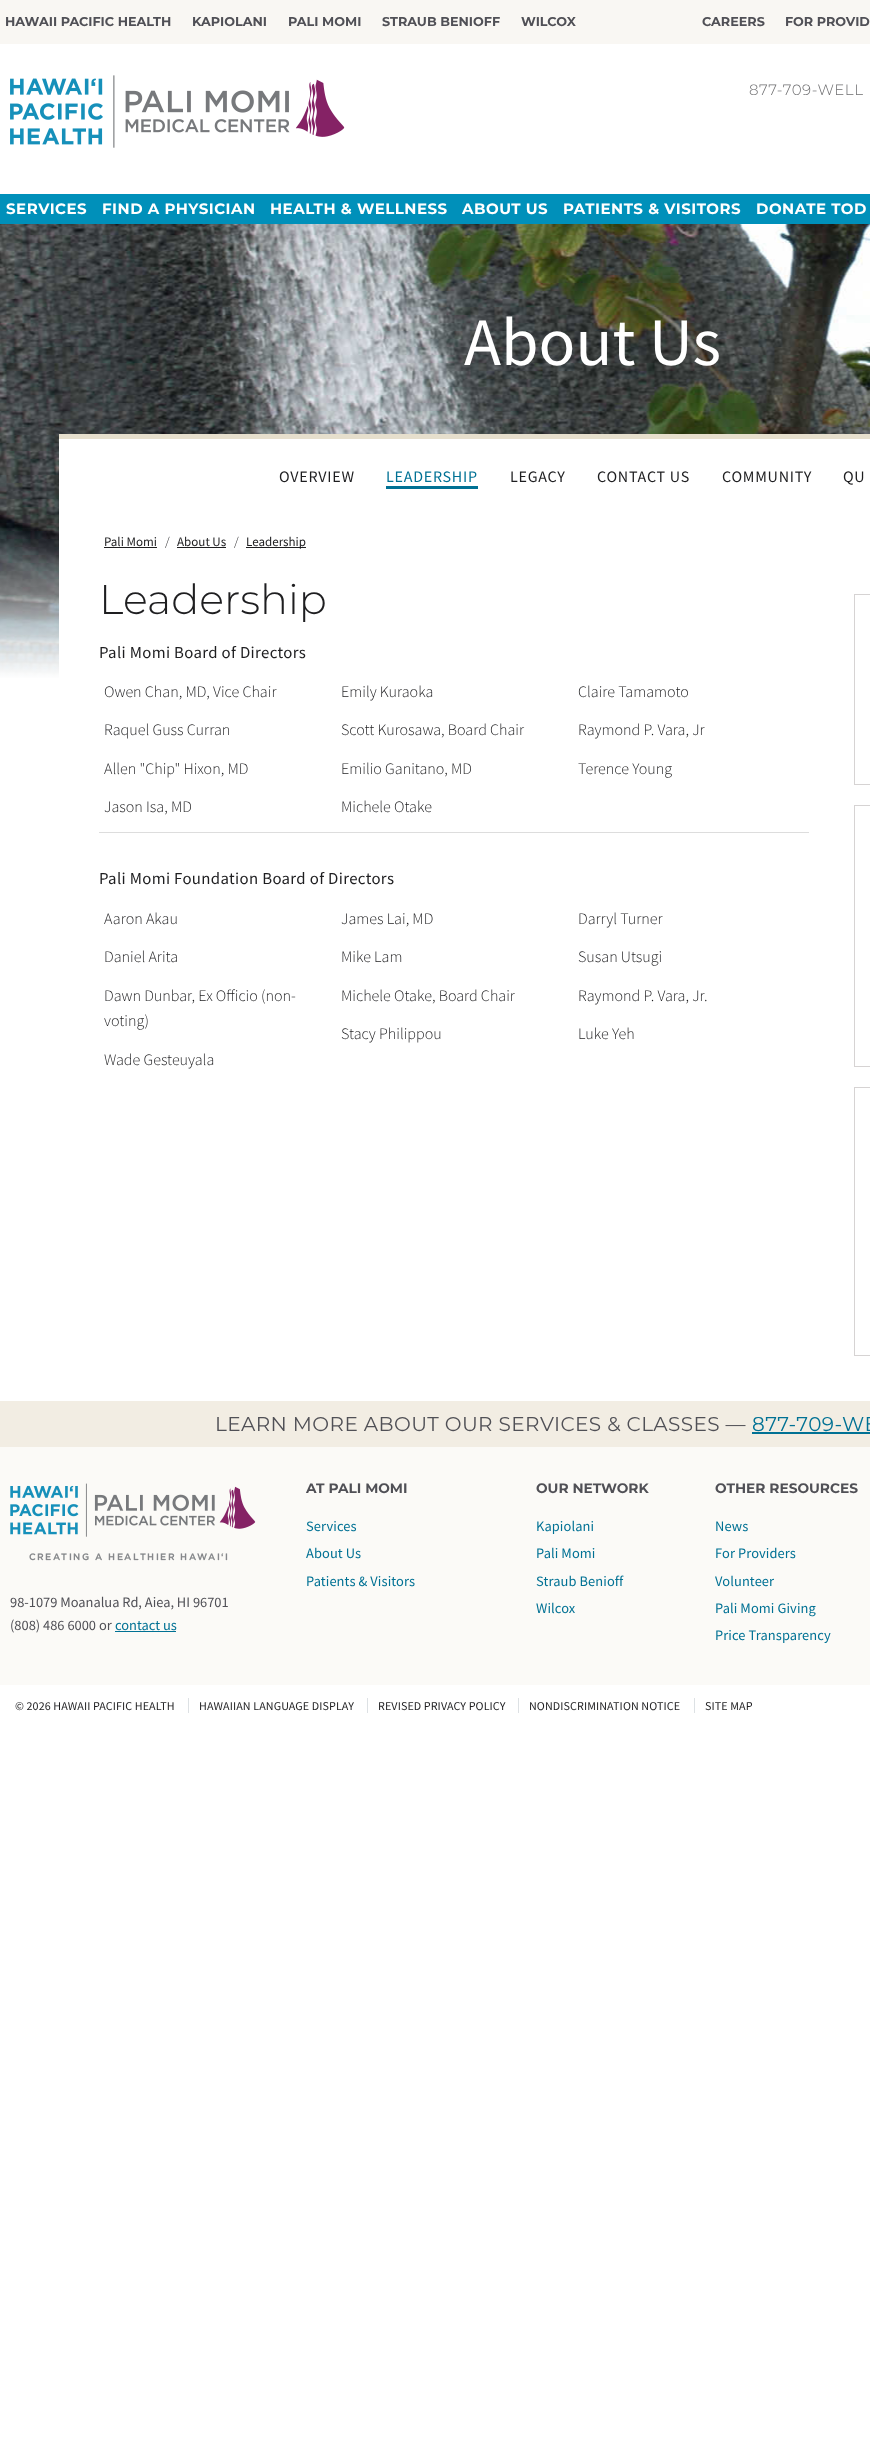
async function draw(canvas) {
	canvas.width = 870;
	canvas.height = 2453;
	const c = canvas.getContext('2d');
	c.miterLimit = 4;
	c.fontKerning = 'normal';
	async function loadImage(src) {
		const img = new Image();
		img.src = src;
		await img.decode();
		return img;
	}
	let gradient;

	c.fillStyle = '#fff';
	c.fillRect(0, 0, 870, 2453);
	c.fillStyle = '#f9f7f3';
	c.fillRect(0, 0, 870, 44);
	c.font = 'bold 12.75px Montserrat';
	c.fillStyle = '#505056';
	for (const [text, x, y] of [
		['HAWAII PACIFIC HEALTH', 5, 26],
		['KAPIOLANI', 192, 26],
		['PALI MOMI', 288, 26],
		['STRAUB BENIOFF', 382, 26],
		['WILCOX', 521, 26],
		['CAREERS', 702, 26],
		['FOR PROVID', 785, 26],
	]) {
		c.fillText(text, x, y);
	}
	c.drawImage(await loadImage('img1.png'), 10, 75, 335, 73);
	c.letterSpacing = '0.5px';
	c.font = '300 15px Montserrat';
	c.fillStyle = '#6f6f71';
	c.fillText('877-709-WELL', 749, 95);
	c.fillStyle = '#0090ba';
	c.fillRect(0, 194, 870, 30);
	c.font = 'bold 15px Montserrat';
	c.fillStyle = '#fff';
	for (const [text, x, y] of [
		['SERVICES', 6, 214],
		['FIND A PHYSICIAN', 102, 214],
		['HEALTH & WELLNESS', 270, 214],
		['ABOUT US', 462, 214],
		['PATIENTS & VISITORS', 563, 214],
		['DONATE TOD', 756, 214],
	]) {
		c.fillText(text, x, y);
	}
	c.drawImage(await loadImage('img2.png'), 0, 224, 870, 454);
	c.letterSpacing = '0px';
	c.font = '68px Source Sans Pro';
	c.fillText('About Us', 464, 365);
	gradient = c.createLinearGradient(593, 179, 593, 679);
	gradient.addColorStop(0.69, '#ffffff00');
	gradient.addColorStop(0.7, '#ffffff08');
	gradient.addColorStop(1, '#fff');
	c.fillStyle = gradient;
	c.fillRect(0, 528, 59, 150);
	c.fillStyle = '#fff';
	c.fillRect(59, 439, 811, 239);
	c.fillStyle = '#e6dfcd';
	c.fillRect(59, 434, 811, 5);
	c.letterSpacing = '0.75px';
	c.font = '16px Source Sans Pro';
	c.fillStyle = '#1e1e20';
	c.fillText('OVERVIEW', 279, 482);
	c.fillStyle = '#007194';
	c.fillText('LEADERSHIP', 386, 482);
	c.fillRect(386, 486, 92, 3);
	c.fillStyle = '#1e1e20';
	for (const [text, x, y] of [
		['LEGACY', 510, 482],
		['CONTACT US', 597, 482],
		['COMMUNITY', 722, 482],
		['QU', 843, 482],
	]) {
		c.fillText(text, x, y);
	}
	c.letterSpacing = '0px';
	c.font = '13px Source Sans Pro';
	c.fillText('Pali Momi', 104, 546);
	c.fillRect(104, 547, 53, 1);
	c.font = '300 13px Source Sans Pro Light';
	c.fillText('/', 165, 546);
	c.font = '13px Source Sans Pro';
	c.fillText('About Us', 177, 546);
	c.fillRect(177, 547, 49, 1);
	c.font = '300 13px Source Sans Pro Light';
	c.fillText('/', 234, 546);
	c.fillRect(246, 547, 60, 1);
	c.font = '13px Source Sans Pro';
	c.fillText('Leadership', 246, 546);
	c.font = '300 41.5px Montserrat';
	c.fillText('Leadership', 99, 614);
	c.letterSpacing = '0.35px';
	c.font = '16.75px Source Sans Pro';
	c.fillText('Pali Momi Board of Directors', 99, 658);
	c.letterSpacing = '0px';
	c.font = '300 16px Source Sans Pro Light';
	for (const [text, x, y] of [
		['Owen Chan, MD, Vice Chair', 104, 697],
		['Raquel Guss Curran', 104, 735],
		['Allen "Chip" Hixon, MD', 104, 774],
		['Jason Isa, MD', 104, 812],
		['Emily Kuraoka', 341, 697],
		['Scott Kurosawa, Board Chair', 341, 735],
		['Emilio Ganitano, MD', 341, 774],
		['Michele Otake', 341, 812],
		['Claire Tamamoto', 578, 697],
		['Raymond P. Vara, Jr', 578, 735],
		['Terence Young', 578, 774],
	]) {
		c.fillText(text, x, y);
	}
	c.fillStyle = '#ddd';
	c.fillRect(99, 832, 710, 1);
	c.letterSpacing = '0.35px';
	c.font = '16.75px Source Sans Pro';
	c.fillStyle = '#1e1e20';
	c.fillText('Pali Momi Foundation Board of Directors', 99, 884);
	c.letterSpacing = '0px';
	c.font = '300 16px Source Sans Pro Light';
	for (const [text, x, y] of [
		['Aaron Akau', 104, 924],
		['Daniel Arita', 104, 962],
		['Dawn Dunbar, Ex Officio (non-', 104, 1001],
		['voting)', 104, 1026],
		['Wade Gesteuyala', 104, 1065],
		['James Lai, MD', 341, 924],
		['Mike Lam', 341, 962],
		['Michele Otake, Board Chair', 341, 1001],
		['Stacy Philippou', 341, 1039],
		['Darryl Turner', 578, 924],
		['Susan Utsugi', 578, 962],
		['Raymond P. Vara, Jr.', 578, 1001],
		['Luke Yeh', 578, 1039],
	]) {
		c.fillText(text, x, y);
	}
	c.strokeStyle = '#d6d3d3';
	c.strokeRect(854.5, 594.5, 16, 190);
	c.strokeRect(854.5, 805.5, 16, 261);
	c.strokeRect(854.5, 1087.5, 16, 268);
	c.fillStyle = '#fbfaf7';
	c.fillRect(0, 1447, 870, 238);
	c.fillStyle = '#f2ede3';
	c.fillRect(0, 1401, 870, 46);
	c.letterSpacing = '0.4px';
	c.font = '20px Montserrat';
	c.fillStyle = '#505056';
	c.fillText('LEARN MORE ABOUT OUR SERVICES & CLASSES —', 215, 1431);
	c.fillStyle = '#007194';
	c.fillText('877-709-WE', 752, 1431);
	c.fillRect(752, 1432, 118, 2);
	c.drawImage(await loadImage('img3.png'), 10, 1483, 246, 78);
	c.letterSpacing = '0px';
	c.font = '14.4px Source Sans Pro';
	c.fillStyle = '#505056';
	c.fillText('98-1079 Moanalua Rd, Aiea, HI 96701', 10, 1607);
	c.fillText('(808) 486 6000 or', 10, 1630);
	c.fillStyle = '#007194';
	c.fillText('contact us', 115, 1630);
	c.fillRect(115, 1631, 61, 1);
	c.font = 'bold 13.75px Montserrat';
	c.fillStyle = '#505056';
	c.fillText('AT PALI MOMI', 306, 1493);
	c.letterSpacing = '0.1px';
	c.font = '14.4px Source Sans Pro';
	c.fillStyle = '#007194';
	for (const [text, x, y] of [
		['Services', 306, 1531],
		['About Us', 306, 1558],
		['Patients & Visitors', 306, 1586],
	]) {
		c.fillText(text, x, y);
	}
	c.letterSpacing = '0px';
	c.font = 'bold 13.75px Montserrat';
	c.fillStyle = '#505056';
	c.fillText('OUR NETWORK', 536, 1493);
	c.letterSpacing = '0.1px';
	c.font = '14.4px Source Sans Pro';
	c.fillStyle = '#007194';
	for (const [text, x, y] of [
		['Kapiolani', 536, 1531],
		['Pali Momi', 536, 1558],
		['Straub Benioff', 536, 1586],
		['Wilcox', 536, 1613],
	]) {
		c.fillText(text, x, y);
	}
	c.letterSpacing = '0px';
	c.font = 'bold 13.75px Montserrat';
	c.fillStyle = '#505056';
	c.fillText('OTHER RESOURCES', 715, 1493);
	c.letterSpacing = '0.1px';
	c.font = '14.4px Source Sans Pro';
	c.fillStyle = '#007194';
	for (const [text, x, y] of [
		['News', 715, 1531],
		['For Providers', 715, 1558],
		['Volunteer', 715, 1586],
		['Pali Momi Giving', 715, 1613],
		['Price Transparency', 715, 1640],
	]) {
		c.fillText(text, x, y);
	}
	c.font = '12px Source Sans Pro';
	c.fillStyle = '#1e1e20';
	c.fillText('© 2026 HAWAII PACIFIC HEALTH', 15, 1710);
	c.fillText('HAWAIIAN LANGUAGE DISPLAY', 199, 1710);
	c.fillStyle = '#dde1e4';
	c.fillRect(188, 1698, 1, 15);
	c.fillStyle = '#1e1e20';
	c.fillText('REVISED PRIVACY POLICY', 378, 1710);
	c.fillStyle = '#dde1e4';
	c.fillRect(367, 1698, 1, 15);
	c.fillStyle = '#1e1e20';
	c.fillText('NONDISCRIMINATION NOTICE', 529, 1710);
	c.fillStyle = '#dde1e4';
	c.fillRect(518, 1698, 1, 15);
	c.fillStyle = '#1e1e20';
	c.fillText('SITE MAP', 705, 1710);
	c.fillStyle = '#dde1e4';
	c.fillRect(694, 1698, 1, 15);
}

draw(document.querySelector('canvas'));
